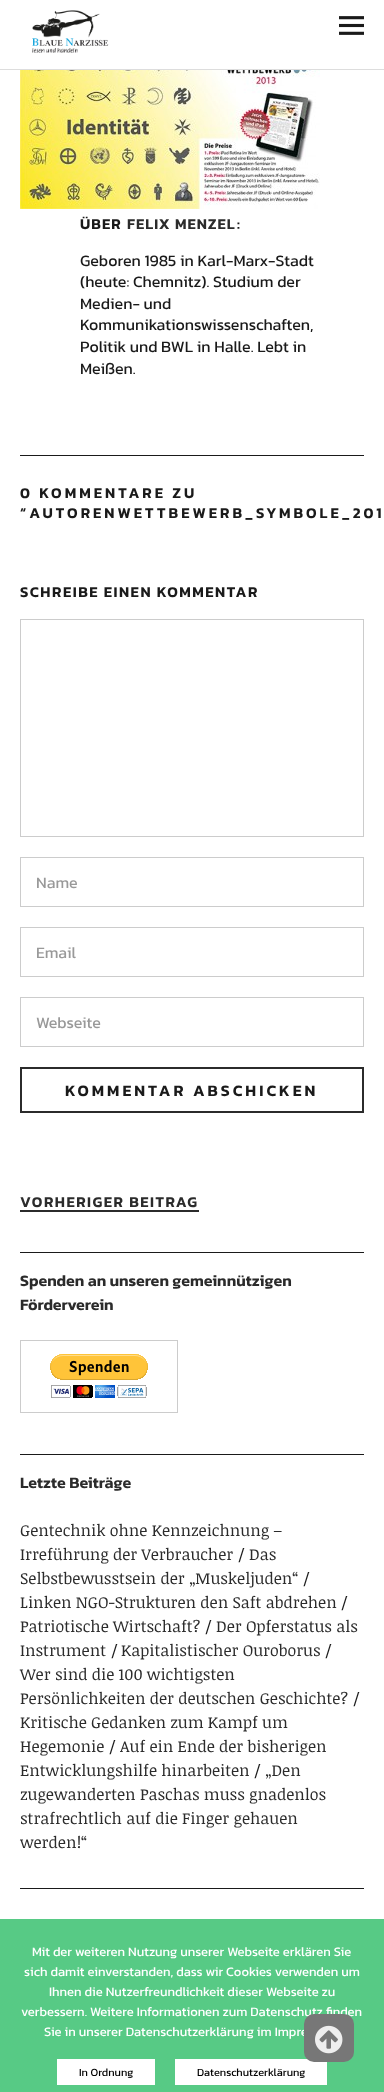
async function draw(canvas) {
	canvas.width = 384;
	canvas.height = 2092;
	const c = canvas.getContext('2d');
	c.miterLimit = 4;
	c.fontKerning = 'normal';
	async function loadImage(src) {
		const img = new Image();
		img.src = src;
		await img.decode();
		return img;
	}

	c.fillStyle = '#fff';
	c.fillRect(0, 0, 384, 2092);
	c.fillStyle = '#ddd';
	c.fillRect(0, 69, 384, 1);
	c.drawImage(await loadImage('img1.png'), 32, 10, 77, 43);
	c.drawImage(await loadImage('img2.png'), 339, 16, 25, 19);
	c.drawImage(await loadImage('img3.png'), 20, 70, 300, 139);
	c.letterSpacing = '1px';
	c.font = '600 15px Kanit';
	c.fillStyle = '#1a1a1a';
	c.fillText('ÜBER', 80, 229);
	c.fillStyle = '#2b2b2b';
	c.fillText('FELIX MENZEL', 127, 229);
	c.fillStyle = '#1a1a1a';
	c.fillText(':', 237, 229);
	c.letterSpacing = '0px';
	c.font = '16px Kanit';
	for (const [text, x, y] of [
		['Geboren 1985 in Karl-Marx-Stadt', 80, 266],
		['(heute: Chemnitz). Studium der', 80, 287],
		['Medien- und', 80, 309],
		['Kommunikationswissenschaften,', 80, 330],
		['Politik und BWL in Halle. Lebt in', 80, 352],
		['Meißen.', 80, 374],
	]) {
		c.fillText(text, x, y);
	}
	c.fillRect(20, 455, 344, 1);
	c.letterSpacing = '3px';
	c.font = '600 15px Kanit';
	c.fillText('0 KOMMENTARE ZU', 20, 498);
	c.fillText('“AUTORENWETTBEWERB_SYMBOLE_201', 20, 518);
	c.letterSpacing = '1.5px';
	c.fillText('SCHREIBE EINEN KOMMENTAR', 20, 597);
	c.strokeStyle = '#ccc';
	c.strokeRect(20.5, 619.5, 343, 217);
	c.strokeRect(20.5, 857.5, 343, 49);
	c.letterSpacing = '0px';
	c.font = '16px Kanit';
	c.fillStyle = '#999';
	c.fillText('Name', 36, 888);
	c.strokeRect(20.5, 927.5, 343, 49);
	c.fillText('Email', 36, 958);
	c.strokeRect(20.5, 997.5, 343, 49);
	c.fillText('Webseite', 36, 1028);
	c.strokeStyle = '#2b2b2b';
	c.lineWidth = 2;
	c.strokeRect(21, 1068, 342, 44);
	c.letterSpacing = '3px';
	c.font = '600 16px Kanit';
	c.fillStyle = '#1a1a1a';
	c.fillText('KOMMENTAR ABSCHICKEN', 65, 1096);
	c.fillStyle = '#2b2b2b';
	c.fillRect(20, 1210, 179, 2);
	c.letterSpacing = '1.5px';
	c.font = '600 15px Kanit';
	c.fillText('VORHERIGER BEITRAG', 20, 1207);
	c.fillStyle = '#1a1a1a';
	c.fillRect(20, 1252, 344, 1);
	c.letterSpacing = '0px';
	c.font = '600 16px Kanit';
	c.fillStyle = '#2b2b2b';
	c.fillText('Spenden an unseren gemeinnützigen', 20, 1286);
	c.fillText('Förderverein', 20, 1310);
	c.strokeStyle = '#ccc';
	c.lineWidth = 1;
	c.strokeRect(20.5, 1340.5, 157, 72);
	c.drawImage(await loadImage('img4.png'), 50, 1354, 98, 44);
	c.fillStyle = '#1a1a1a';
	c.fillRect(20, 1454, 344, 1);
	c.fillStyle = '#2b2b2b';
	c.fillText('Letzte Beiträge', 20, 1488);
	c.font = '16px Noticia Text';
	c.fillText('Gentechnik ohne Kennzeichnung –', 20, 1536);
	c.fillText('Irreführung der Verbraucher', 20, 1560);
	c.fillStyle = '#1a1a1a';
	c.fillText('/', 238, 1560);
	c.fillStyle = '#2b2b2b';
	c.fillText('Das', 249, 1560);
	c.fillText('Selbstbewusstsein der „Muskeljuden“', 20, 1584);
	c.fillStyle = '#1a1a1a';
	c.fillText('/', 303, 1584);
	c.fillStyle = '#2b2b2b';
	c.fillText('Linken NGO-Strukturen den Saft abdrehen', 20, 1608);
	c.fillStyle = '#1a1a1a';
	c.fillText('/', 341, 1608);
	c.fillStyle = '#2b2b2b';
	c.fillText('Patriotische Wirtschaft?', 20, 1632);
	c.fillStyle = '#1a1a1a';
	c.fillText('/', 205, 1632);
	c.fillStyle = '#2b2b2b';
	c.fillText('Der Opferstatus als', 216, 1632);
	c.fillText('Instrument', 20, 1656);
	c.fillStyle = '#1a1a1a';
	c.fillText('/', 111, 1656);
	c.fillStyle = '#2b2b2b';
	c.fillText('Kapitalistischer Ouroborus', 121, 1656);
	c.fillStyle = '#1a1a1a';
	c.fillText('/', 325, 1656);
	c.fillStyle = '#2b2b2b';
	c.fillText('Wer sind die 100 wichtigsten', 20, 1680);
	c.fillText('Persönlichkeiten der deutschen Geschichte?', 20, 1704);
	c.fillStyle = '#1a1a1a';
	c.fillText('/', 353, 1704);
	c.fillStyle = '#2b2b2b';
	c.fillText('Kritische Gedanken zum Kampf um', 20, 1728);
	c.fillText('Hegemonie', 20, 1752);
	c.fillStyle = '#1a1a1a';
	c.fillText('/', 109, 1752);
	c.fillStyle = '#2b2b2b';
	c.fillText('Auf ein Ende der bisherigen', 120, 1752);
	c.fillText('Entwicklungshilfe hinarbeiten', 20, 1776);
	c.fillStyle = '#1a1a1a';
	c.fillText('/', 254, 1776);
	c.fillStyle = '#2b2b2b';
	for (const [text, x, y] of [
		['„Den', 265, 1776],
		['zugewanderten Paschas muss gnadenlos', 20, 1800],
		['strafrechtlich auf die Finger gehauen', 20, 1824],
		['werden!“', 20, 1848],
	]) {
		c.fillText(text, x, y);
	}
	c.fillStyle = '#1a1a1a';
	c.fillRect(20, 1888, 344, 1);
	c.fillStyle = '#57ca85';
	c.fillRect(0, 1919, 384, 173);
	c.font = '13px Kanit';
	c.fillStyle = '#fff';
	for (const [text, x, y] of [
		['Mit der weiteren Nutzung unserer Webseite erklären Sie', 32, 1956],
		['sich damit einverstanden, dass wir Cookies verwenden um', 24, 1976],
		['Ihnen die Nutzerfreundlichkeit dieser Webseite zu', 49, 1996],
		['verbessern. Weitere Informationen zum Datenschutz finden', 21, 2016],
		['Sie in unserer Datenschutzerklärung im Impre', 44, 2036],
	]) {
		c.fillText(text, x, y);
	}
	c.fillRect(57, 2059, 98, 26);
	c.font = '11px Kanit';
	c.fillStyle = '#000';
	c.fillText('In Ordnung', 79, 2076);
	c.fillStyle = '#fff';
	c.fillRect(175, 2059, 152, 26);
	c.fillStyle = '#000';
	c.fillText('Datenschutzerklärung', 197, 2076);
	c.fillStyle = '#777';
	c.beginPath();
	c.roundRect(304, 2014, 50, 48, 10);
	c.fill();
	c.drawImage(await loadImage('img5.png'), 315, 2025, 28, 29);
}

draw(document.querySelector('canvas'));
